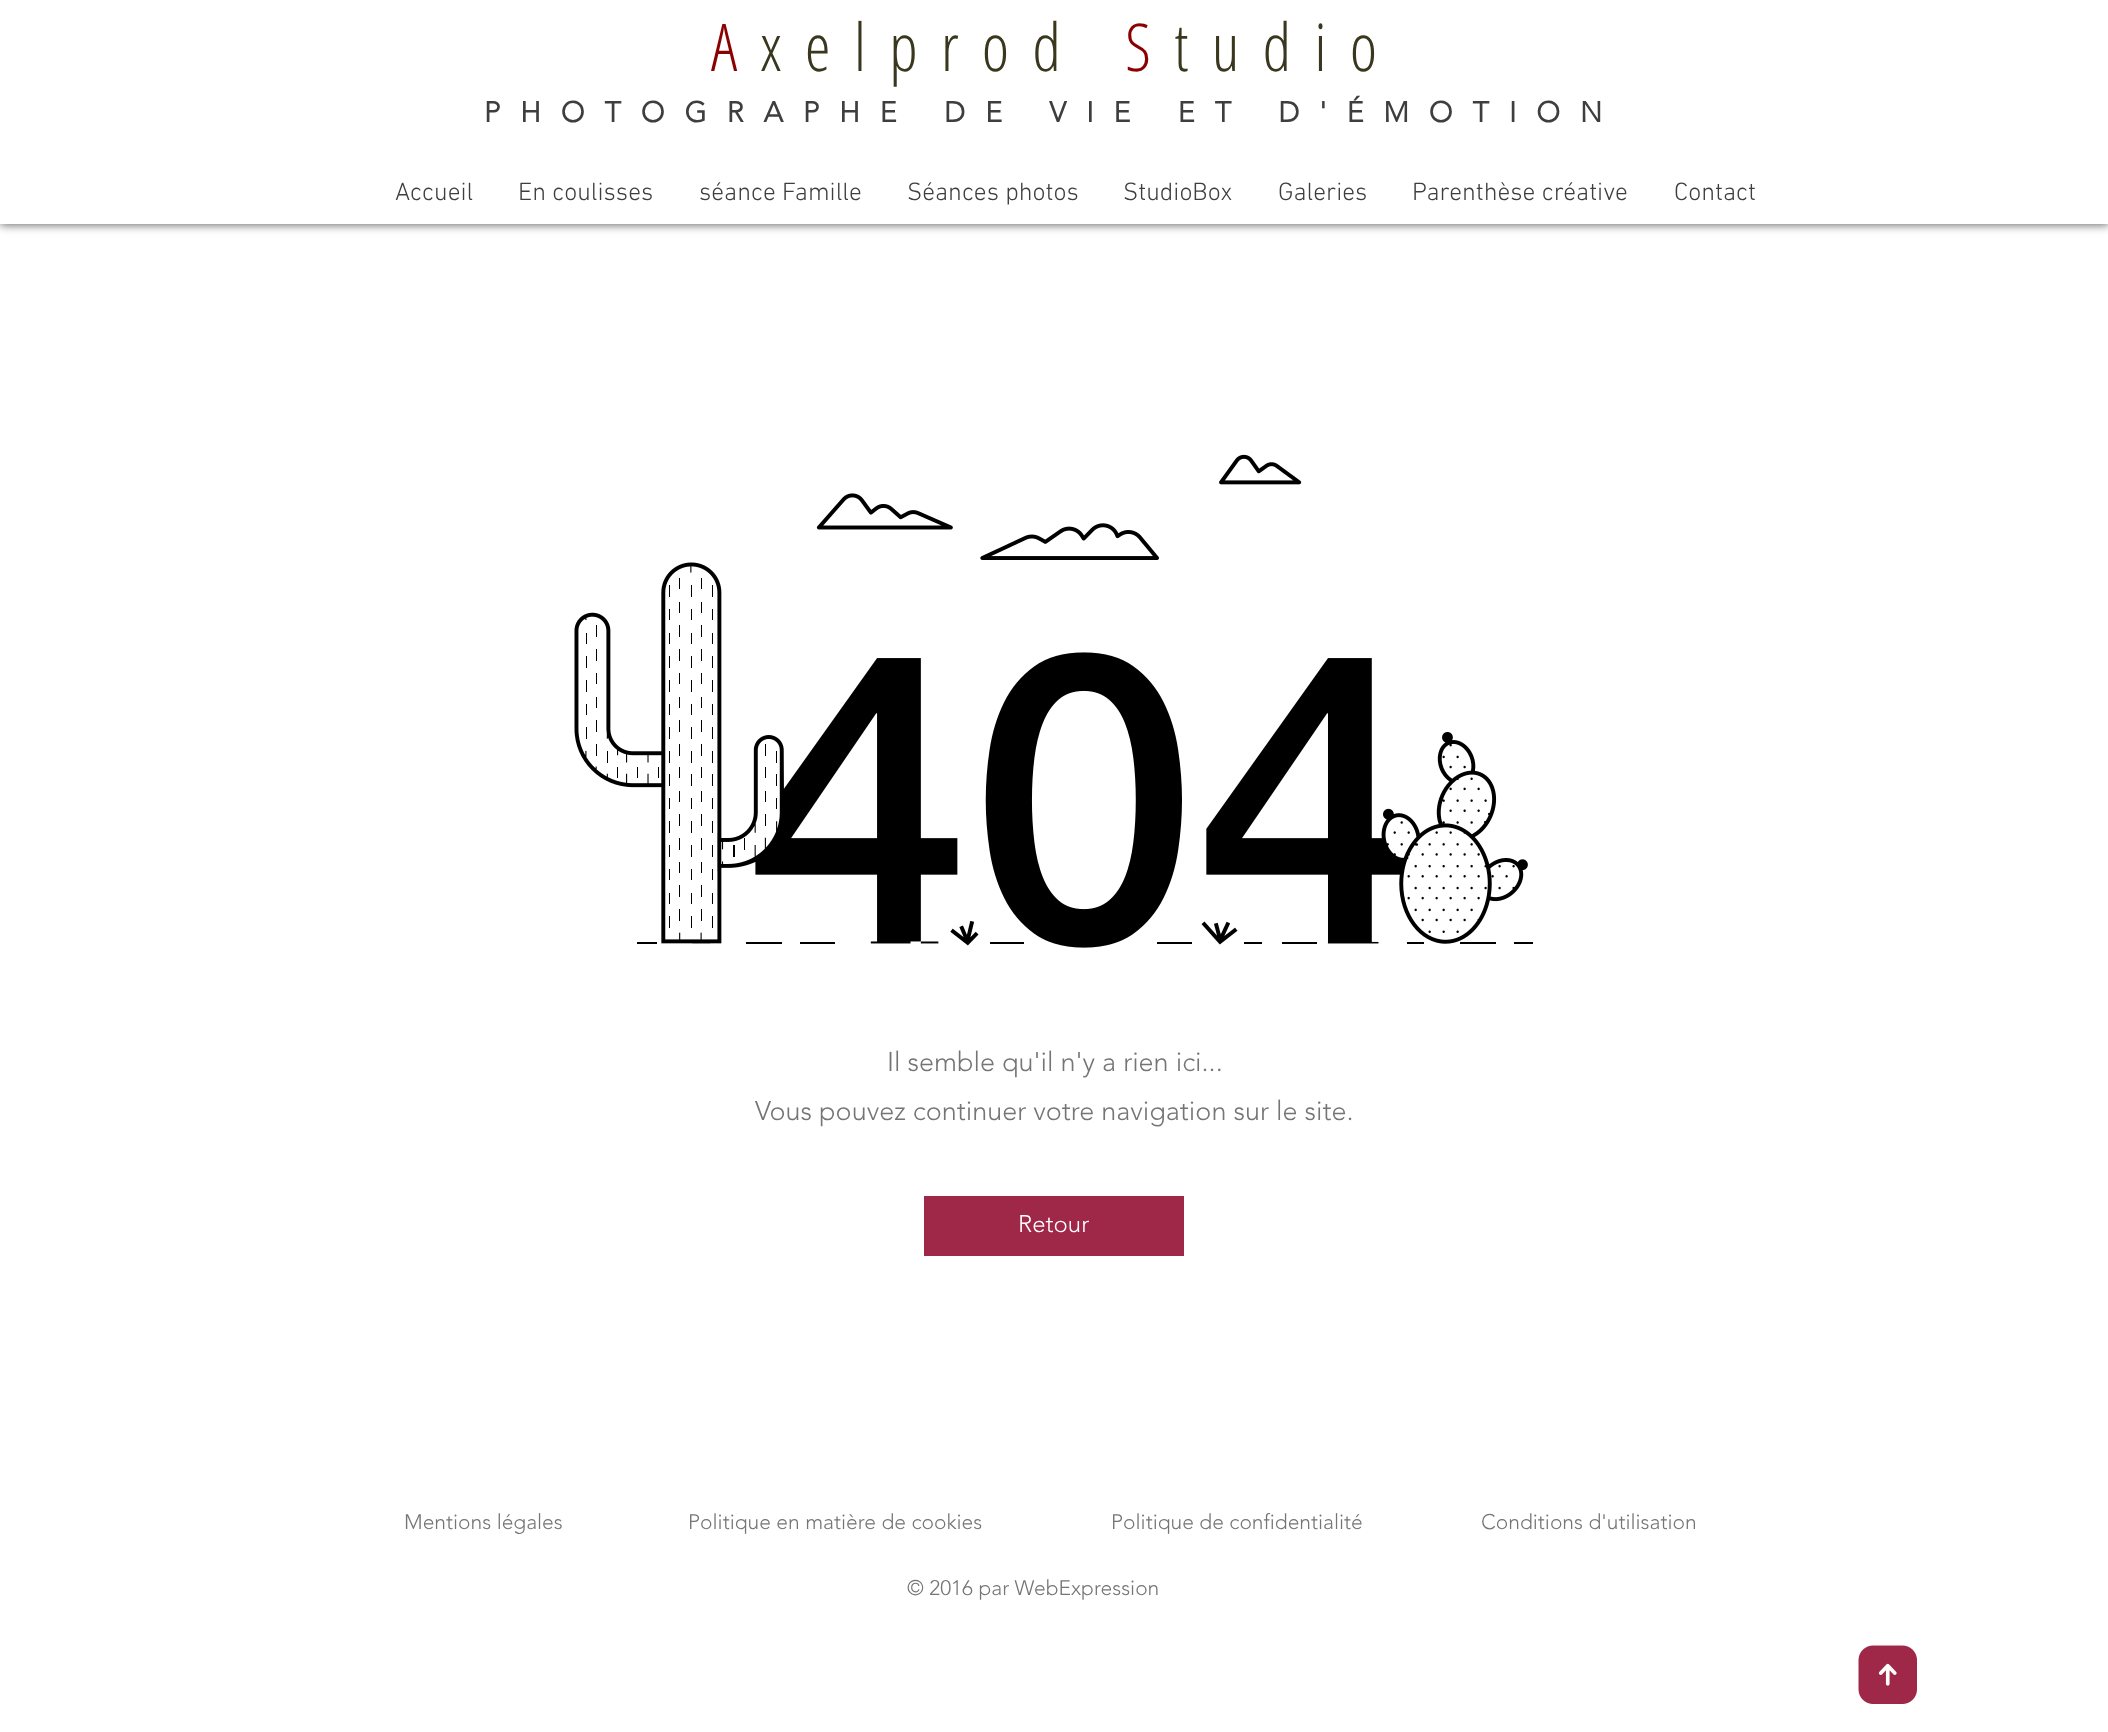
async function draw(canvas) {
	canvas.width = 2108;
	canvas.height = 1732;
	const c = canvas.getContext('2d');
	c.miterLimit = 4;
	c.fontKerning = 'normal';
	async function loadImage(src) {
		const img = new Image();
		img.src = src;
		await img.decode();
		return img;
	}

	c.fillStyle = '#fff';
	c.fillRect(0, 0, 2108, 1732);
	c.fillStyle = '#00000099';
	c.filter = 'blur(5px)';
	c.beginPath();
	c.rect(0, 2, 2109, 223);
	c.fill();
	c.filter = 'none';
	c.fillStyle = '#fff';
	c.fillRect(0, 0, 2108, 224);
	c.letterSpacing = '23px';
	c.font = '300 66px Open Sans Condensed';
	c.fillStyle = '#8b0000';
	c.fillText('A', 711, 71);
	c.fillStyle = '#39371e';
	c.fillText('xelprod', 760, 71);
	c.fillStyle = '#8b0000';
	c.fillText('S', 1125, 71);
	c.fillStyle = '#39371e';
	c.fillText('tudio', 1174, 71);
	c.letterSpacing = '19.95px';
	c.font = 'bold 28.5px "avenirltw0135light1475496"';
	c.fillStyle = '#3e3e3e';
	c.fillText('PHOTOGRAPHE DE VIE ET D\'ÉMOTION', 484, 122);
	c.letterSpacing = '0px';
	c.font = '300 25.5px "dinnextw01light"';
	for (const [text, x, y] of [
		['Accueil', 395, 200],
		['En coulisses', 518, 200],
		['séance Famille', 699, 200],
		['Séances photos', 907, 200],
		['StudioBox', 1123, 200],
		['Galeries', 1278, 200],
		['Parenthèse créative', 1412, 200],
		['Contact', 1674, 200],
	]) {
		c.fillText(text, x, y);
	}
	c.drawImage(await loadImage('img1.png'), 574, 454, 959, 494);
	c.font = '300 27px "avenirltw0135light1475496"';
	c.fillStyle = '#757575';
	c.fillText('Il semble qu\'il n\'y a rien ici...', 887, 1071);
	c.fillText('Vous pouvez continuer votre navigation sur le site.', 755, 1120);
	c.fillStyle = '#9f2747';
	c.fillRect(924, 1196, 260, 60);
	c.font = '300 24px "avenirltw0135light1475496"';
	c.fillStyle = '#fff';
	c.fillText('Retour', 1018, 1232);
	c.font = '300 21px "avenirltw0135light1475496"';
	c.fillStyle = '#757575';
	for (const [text, x, y] of [
		['Mentions légales', 404, 1529],
		['Politique en matière de cookies', 688, 1529],
		['Politique de confidentialité', 1111, 1529],
		['Conditions d\'utilisation', 1481, 1529],
		['© 2016 par WebExpression', 907, 1595],
	]) {
		c.fillText(text, x, y);
	}
	c.drawImage(await loadImage('img2.png'), 1858, 1645, 59, 59);
}

draw(document.querySelector('canvas'));
